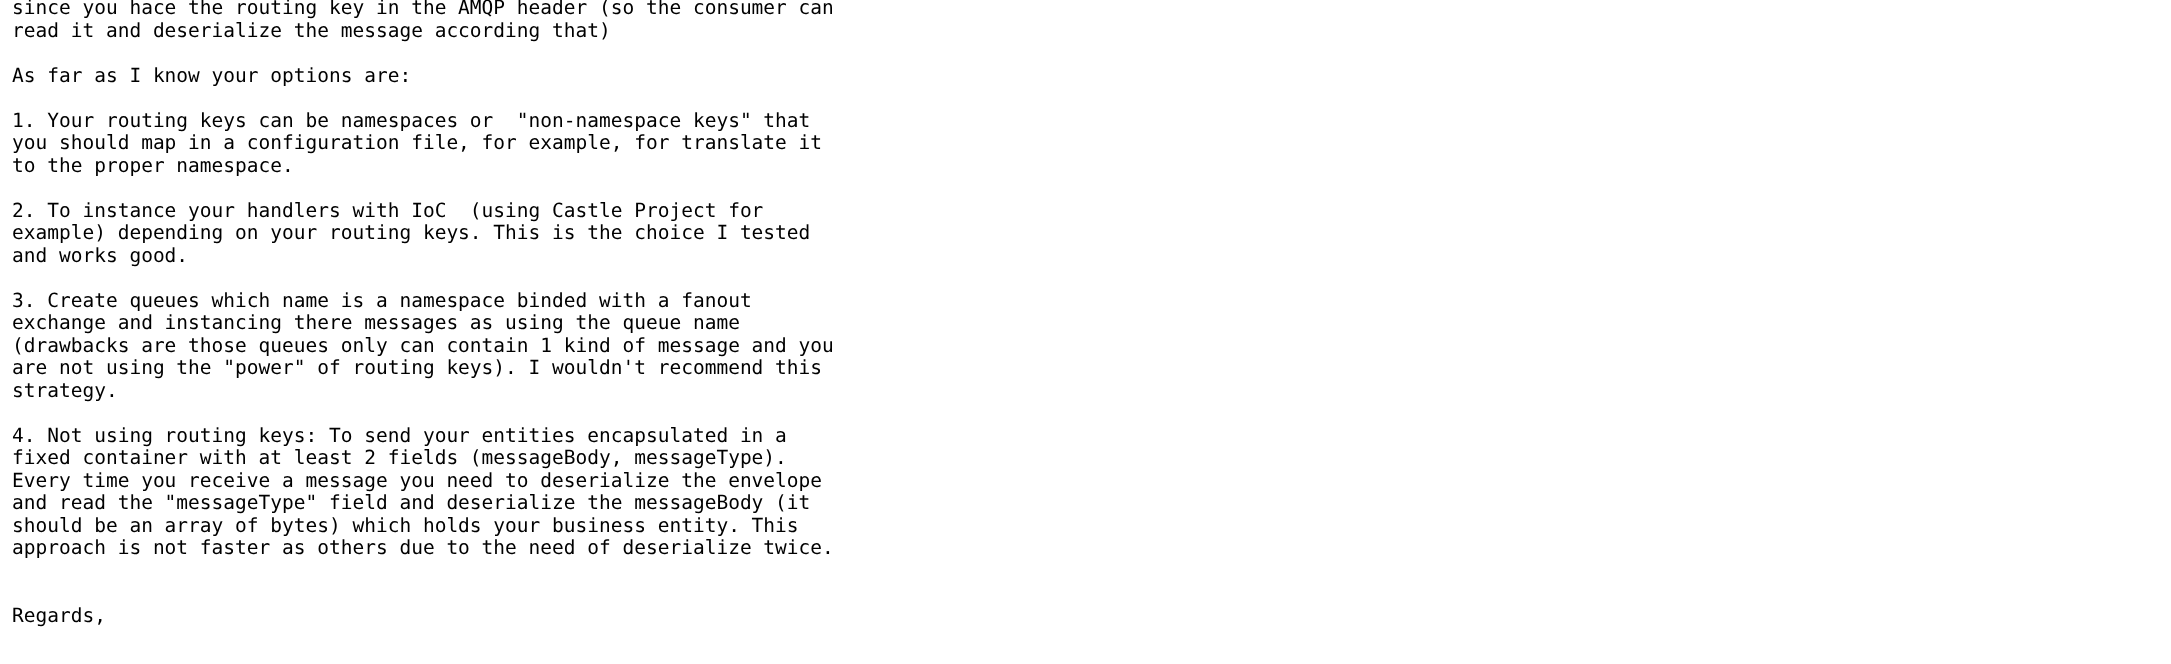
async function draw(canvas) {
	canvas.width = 2171;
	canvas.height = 664;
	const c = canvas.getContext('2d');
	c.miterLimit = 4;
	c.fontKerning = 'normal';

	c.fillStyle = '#fff';
	c.fillRect(0, 0, 2171, 664);
	c.font = '19.5px DejaVu Sans Mono';
	c.fillStyle = '#000';
	for (const [text, x, y] of [
		['since you hace the routing key in the AMQP header (so the consumer can', 12, 14],
		['read it and deserialize the message according that)', 12, 37],
		['As far as I know your options are:', 12, 82],
		['1. Your routing keys can be namespaces or  "non-namespace keys" that', 12, 127],
		['you should map in a configuration file, for example, for translate it', 12, 149],
		['to the proper namespace.', 12, 172],
		['2. To instance your handlers with IoC  (using Castle Project for', 12, 217],
		['example) depending on your routing keys. This is the choice I tested', 12, 239],
		['and works good.', 12, 262],
		['3. Create queues which name is a namespace binded with a fanout', 12, 307],
		['exchange and instancing there messages as using the queue name', 12, 329],
		['(drawbacks are those queues only can contain 1 kind of message and you', 12, 352],
		['are not using the "power" of routing keys). I wouldn\'t recommend this', 12, 374],
		['strategy.', 12, 397],
		['4. Not using routing keys: To send your entities encapsulated in a', 12, 442],
		['fixed container with at least 2 fields (messageBody, messageType).', 12, 464],
		['Every time you receive a message you need to deserialize the envelope', 12, 487],
		['and read the "messageType" field and deserialize the messageBody (it', 12, 509],
		['should be an array of bytes) which holds your business entity. This', 12, 532],
		['approach is not faster as others due to the need of deserialize twice.', 12, 554],
		['Regards,', 12, 622],
	]) {
		c.fillText(text, x, y);
	}
}

draw(document.querySelector('canvas'));
